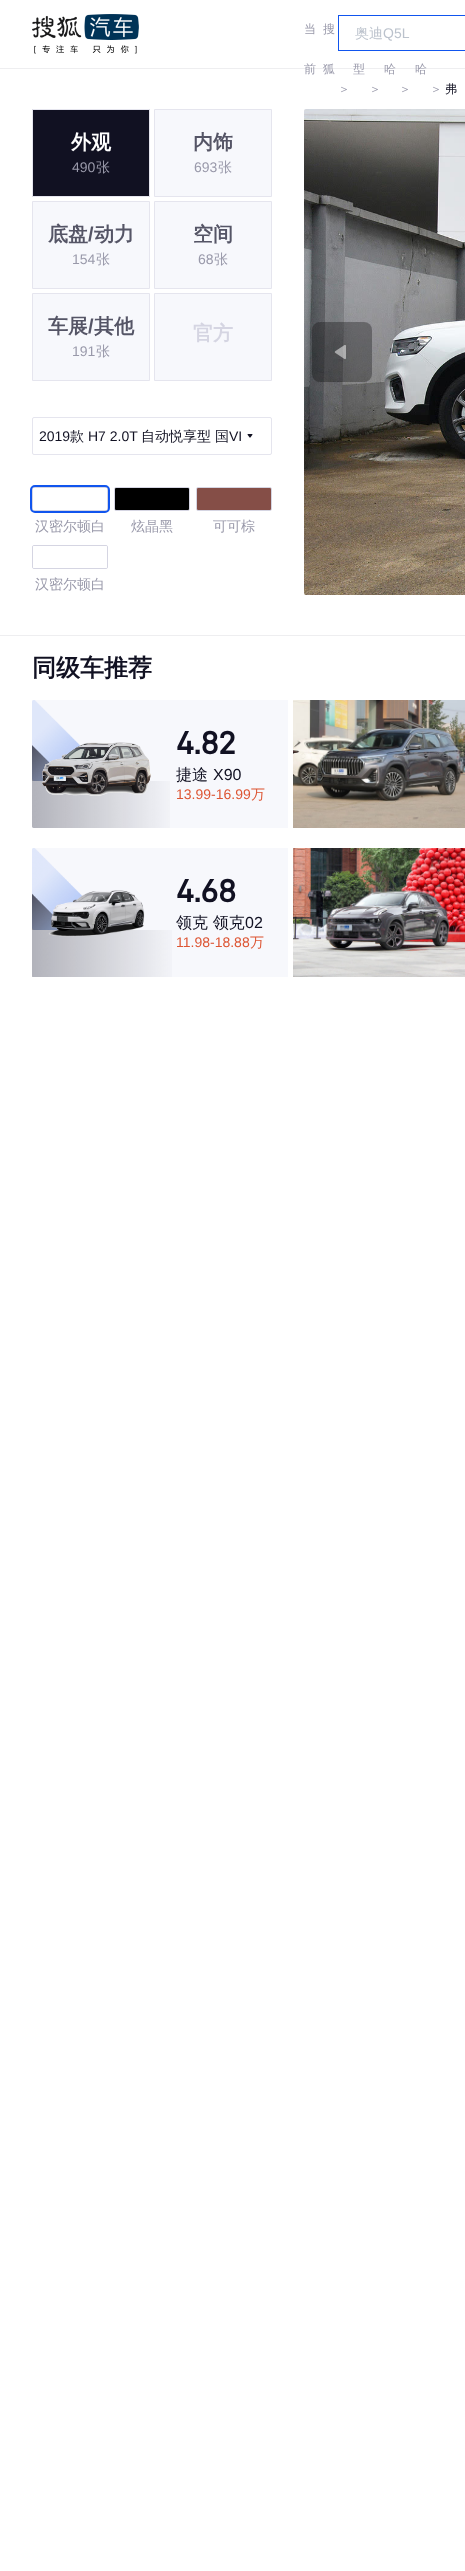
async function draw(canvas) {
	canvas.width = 465;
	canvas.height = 2571;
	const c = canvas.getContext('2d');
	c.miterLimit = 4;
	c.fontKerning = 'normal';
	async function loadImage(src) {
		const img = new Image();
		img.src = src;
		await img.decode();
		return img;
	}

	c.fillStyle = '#fff';
	c.fillRect(0, 0, 465, 2571);
	c.font = '500 12px WenQuanYi Zen Hei';
	c.fillStyle = '#99a';
	c.fillText('当', 304, 33);
	c.fillStyle = '#eeeef0';
	c.fillRect(0, 68, 465, 1);
	c.fillStyle = '#99a';
	for (const [text, x, y] of [
		['前', 304, 73],
		['搜', 323, 33],
		['狐', 323, 73],
		['型', 353, 73],
		['哈', 384, 73],
		['哈', 415, 73],
		['＞', 338, 93],
		['＞', 369, 93],
		['＞', 399, 93],
		['＞', 430, 93],
	]) {
		c.fillText(text, x, y);
	}
	c.fillStyle = '#112';
	c.fillText('弗', 445, 93);
	c.drawImage(await loadImage('img1.png'), 32, 14, 107, 40);
	c.strokeStyle = '#15e';
	c.strokeRect(338.5, 15.5, 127, 35);
	c.font = '500 14px WenQuanYi Zen Hei';
	c.fillStyle = '#bbc2cc';
	c.fillText('奥迪', 355, 38);
	c.font = '14px Liberation Sans';
	c.fillText('Q5L', 383, 38);
	c.fillStyle = '#112';
	c.beginPath();
	c.rect(32.5, 109.5, 117, 87);
	c.fill();
	c.strokeStyle = '#e5e5ee';
	c.stroke();
	c.font = 'bold 20px WenQuanYi Zen Hei';
	c.fillStyle = '#fff';
	c.fillText('外观', 71, 149);
	c.font = '14px Liberation Sans';
	c.fillStyle = '#99a';
	c.fillText('490', 72, 172);
	c.font = '500 14px WenQuanYi Zen Hei';
	c.fillText('张', 96, 172);
	c.fillStyle = '#f7f8fc';
	c.beginPath();
	c.rect(154.5, 109.5, 117, 87);
	c.fill();
	c.stroke();
	c.font = 'bold 20px WenQuanYi Zen Hei';
	c.fillStyle = '#556';
	c.fillText('内饰', 193, 149);
	c.font = '14px Liberation Sans';
	c.fillStyle = '#99a';
	c.fillText('693', 194, 172);
	c.font = '500 14px WenQuanYi Zen Hei';
	c.fillText('张', 218, 172);
	c.fillStyle = '#f7f8fc';
	c.beginPath();
	c.rect(32.5, 201.5, 117, 87);
	c.fill();
	c.stroke();
	c.font = 'bold 20px WenQuanYi Zen Hei';
	c.fillStyle = '#556';
	c.fillText('底盘', 48, 241);
	c.font = 'bold 20px Liberation Sans';
	c.fillText('/', 88, 241);
	c.font = 'bold 20px WenQuanYi Zen Hei';
	c.fillText('动力', 94, 241);
	c.font = '14px Liberation Sans';
	c.fillStyle = '#99a';
	c.fillText('154', 72, 264);
	c.font = '500 14px WenQuanYi Zen Hei';
	c.fillText('张', 96, 264);
	c.fillStyle = '#f7f8fc';
	c.beginPath();
	c.rect(154.5, 201.5, 117, 87);
	c.fill();
	c.stroke();
	c.font = 'bold 20px WenQuanYi Zen Hei';
	c.fillStyle = '#556';
	c.fillText('空间', 193, 241);
	c.font = '14px Liberation Sans';
	c.fillStyle = '#99a';
	c.fillText('68', 198, 264);
	c.font = '500 14px WenQuanYi Zen Hei';
	c.fillText('张', 214, 264);
	c.fillStyle = '#f7f8fc';
	c.beginPath();
	c.rect(32.5, 293.5, 117, 87);
	c.fill();
	c.stroke();
	c.font = 'bold 20px WenQuanYi Zen Hei';
	c.fillStyle = '#556';
	c.fillText('车展', 48, 333);
	c.font = 'bold 20px Liberation Sans';
	c.fillText('/', 88, 333);
	c.font = 'bold 20px WenQuanYi Zen Hei';
	c.fillText('其他', 94, 333);
	c.font = '14px Liberation Sans';
	c.fillStyle = '#99a';
	c.fillText('191', 72, 356);
	c.font = '500 14px WenQuanYi Zen Hei';
	c.fillText('张', 96, 356);
	c.fillStyle = '#f7f8fc';
	c.beginPath();
	c.rect(154.5, 293.5, 117, 87);
	c.fill();
	c.stroke();
	c.font = 'bold 20px WenQuanYi Zen Hei';
	c.fillStyle = '#d5d5e2';
	c.fillText('官方', 193, 340);
	c.beginPath();
	c.roundRect(32.5, 417.5, 239, 37, 1.5);
	c.stroke();
	c.font = '14px Liberation Sans';
	c.fillStyle = '#112';
	c.fillText('2019', 39, 441);
	c.font = '500 14px WenQuanYi Zen Hei';
	c.fillText('款', 70, 441);
	c.font = '14px Liberation Sans';
	c.fillText('H7 2.0T', 88, 441);
	c.font = '500 14px WenQuanYi Zen Hei';
	c.fillText('自动悦享型', 141, 441);
	c.fillText('国', 215, 441);
	c.font = '14px Liberation Sans';
	c.fillText('VI', 229, 441);
	c.drawImage(await loadImage('img2.png'), 247, 434, 6, 4);
	c.beginPath();
	c.roundRect(32.5, 487.5, 75, 23, 1.5);
	c.strokeStyle = '#d5d5e2';
	c.stroke();
	c.fillStyle = '#fff';
	c.beginPath();
	c.roundRect(33, 488, 74, 22, 1);
	c.fill();
	c.beginPath();
	c.roundRect(31, 486, 78, 26, 4);
	c.strokeStyle = '#15e';
	c.lineWidth = 2;
	c.stroke();
	c.font = '500 14px WenQuanYi Zen Hei';
	c.fillStyle = '#99a';
	c.fillText('汉密尔顿白', 35, 531);
	c.beginPath();
	c.roundRect(114.5, 487.5, 75, 23, 1.5);
	c.strokeStyle = '#d5d5e2';
	c.lineWidth = 1;
	c.stroke();
	c.fillStyle = '#000';
	c.beginPath();
	c.roundRect(115, 488, 74, 22, 1);
	c.fill();
	c.fillStyle = '#99a';
	c.fillText('炫晶黑', 131, 531);
	c.beginPath();
	c.roundRect(196.5, 487.5, 75, 23, 1.5);
	c.stroke();
	c.fillStyle = '#854e47';
	c.beginPath();
	c.roundRect(197, 488, 74, 22, 1);
	c.fill();
	c.fillStyle = '#99a';
	c.fillText('可可棕', 213, 531);
	c.beginPath();
	c.roundRect(32.5, 545.5, 75, 23, 1.5);
	c.stroke();
	c.fillStyle = '#fff';
	c.beginPath();
	c.roundRect(33, 546, 74, 22, 1);
	c.fill();
	c.fillStyle = '#99a';
	c.fillText('汉密尔顿白', 35, 589);
	c.drawImage(await loadImage('img3.png'), 304, 109, 161, 486);
	c.fillStyle = '#0000004d';
	c.beginPath();
	c.roundRect(312, 322, 60, 60, 8);
	c.fill();
	c.drawImage(await loadImage('img4.png'), 334, 345, 12, 14);
	c.fillStyle = '#eeeef0';
	c.fillRect(0, 635, 465, 1);
	c.font = 'bold 24px WenQuanYi Zen Hei';
	c.fillStyle = '#112';
	c.fillText('同级车推荐', 32, 676);
	c.fillStyle = '#f7f8fc';
	c.fillRect(32, 700, 256, 128);
	c.drawImage(await loadImage('img5.png'), 32, 700, 138, 128);
	c.drawImage(await loadImage('img6.png'), 42, 742, 109, 54);
	c.font = 'bold 32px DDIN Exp';
	c.fillStyle = '#112';
	c.fillText('4.82', 176, 754);
	c.font = '500 16px WenQuanYi Zen Hei';
	c.fillText('捷途', 176, 780);
	c.font = '16px Liberation Sans';
	c.fillText('X90', 213, 780);
	c.font = '14px Liberation Sans';
	c.fillStyle = '#d53';
	c.fillText('13.99-16.99', 176, 799);
	c.font = '500 14px WenQuanYi Zen Hei';
	c.fillText('万', 251, 799);
	c.drawImage(await loadImage('img7.png'), 293, 700, 172, 128);
	c.fillStyle = '#f7f8fc';
	c.fillRect(32, 848, 256, 129);
	c.drawImage(await loadImage('img8.png'), 32, 848, 140, 129);
	c.drawImage(await loadImage('img9.png'), 48, 890, 97, 47);
	c.font = 'bold 32px DDIN Exp';
	c.fillStyle = '#112';
	c.fillText('4.68', 176, 902);
	c.font = '500 16px WenQuanYi Zen Hei';
	c.fillText('领克 领克', 176, 928);
	c.font = '16px Liberation Sans';
	c.fillText('02', 245, 928);
	c.font = '14px Liberation Sans';
	c.fillStyle = '#d53';
	c.fillText('11.98-18.88', 176, 947);
	c.font = '500 14px WenQuanYi Zen Hei';
	c.fillText('万', 250, 947);
	c.drawImage(await loadImage('img10.png'), 293, 848, 172, 129);
}

draw(document.querySelector('canvas'));
